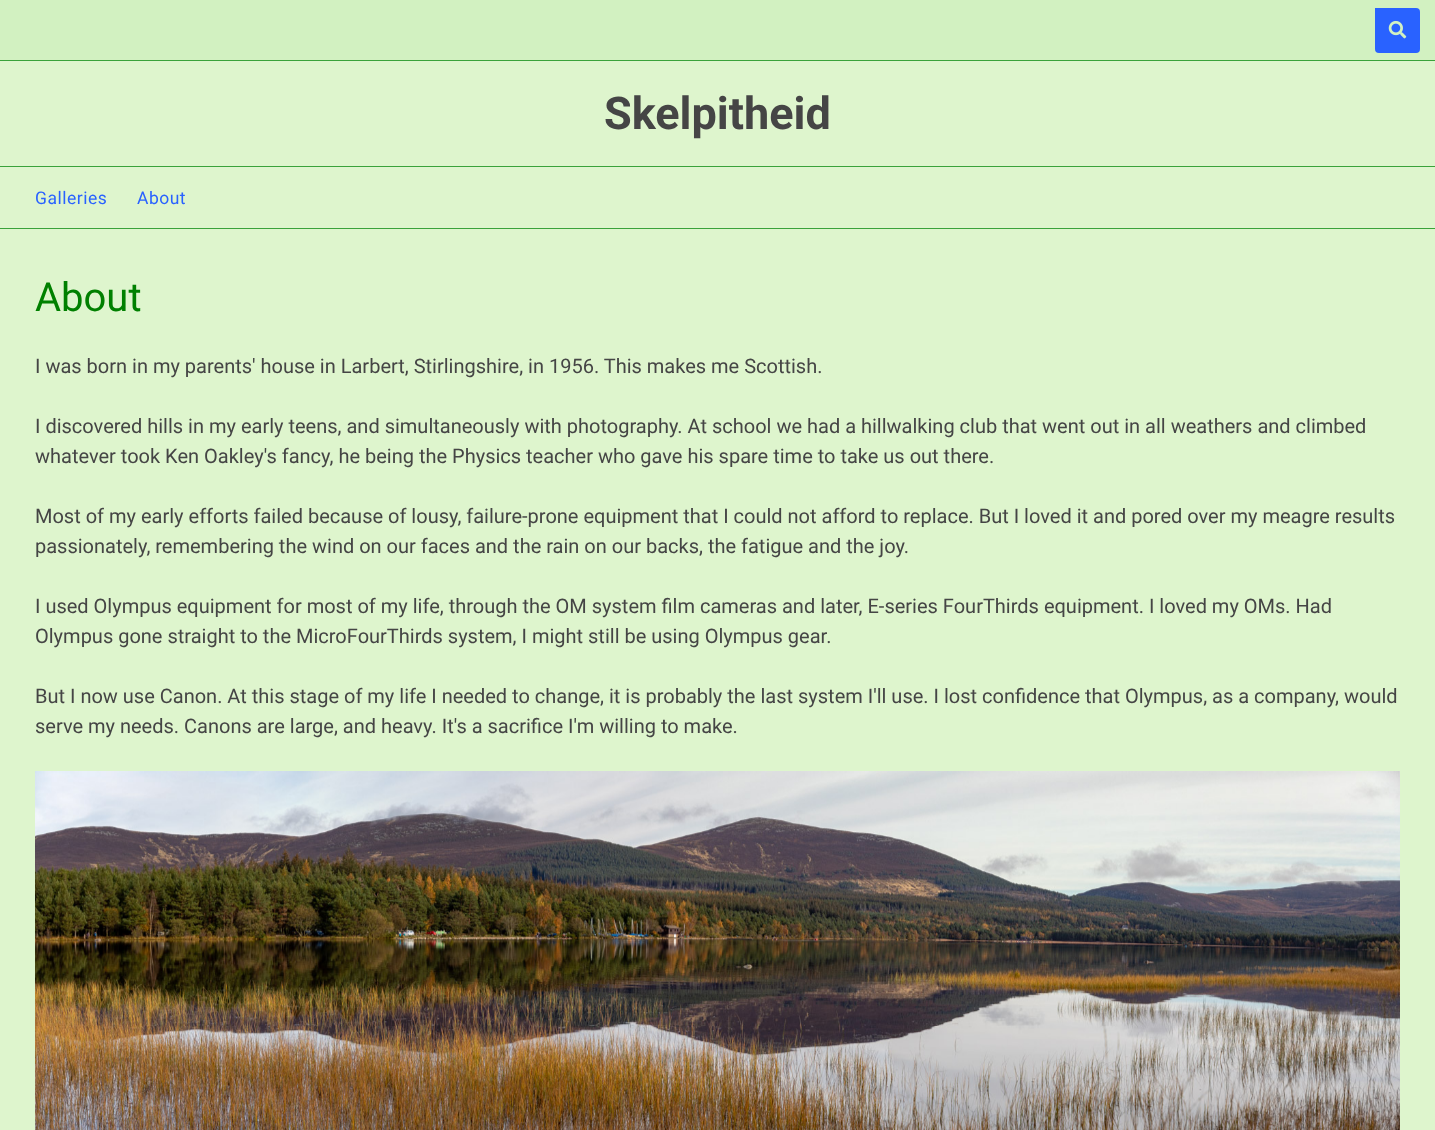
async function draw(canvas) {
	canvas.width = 1435;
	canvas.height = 1130;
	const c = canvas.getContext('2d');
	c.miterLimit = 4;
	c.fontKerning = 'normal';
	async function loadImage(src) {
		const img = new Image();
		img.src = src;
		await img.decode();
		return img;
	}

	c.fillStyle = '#def5cd';
	c.fillRect(0, 0, 1435, 1130);
	c.fillStyle = '#d2f1c1';
	c.fillRect(0, 0, 1435, 60);
	c.fillStyle = '#3aa23a';
	c.fillRect(0, 60, 1435, 1);
	c.fillStyle = '#2962ff';
	c.beginPath();
	c.roundRect(1375, 8, 45, 45, [0, 4, 4, 4]);
	c.fill();
	c.drawImage(await loadImage('img1.png'), 1388, 20, 19, 19);
	c.font = 'bold 45px Roboto';
	c.fillStyle = '#454545';
	c.fillText('Skelpitheid', 604, 129);
	c.fillStyle = '#3aa23a';
	c.fillRect(0, 166, 1435, 1);
	c.fillRect(0, 228, 1435, 1);
	c.letterSpacing = '0.5px';
	c.font = '17.5px Roboto';
	c.fillStyle = '#2962ff';
	c.fillText('Galleries', 35, 204);
	c.fillText('About', 137, 204);
	c.letterSpacing = '0px';
	c.font = '40px Roboto';
	c.fillStyle = '#008000';
	c.fillText('About', 35, 311);
	c.font = '20px Roboto';
	c.fillStyle = '#454545';
	for (const [text, x, y] of [
		['I was born in my parents\' house in Larbert, Stirlingshire, in 1956. This makes me Scottish.', 35, 373],
		['I discovered hills in my early teens, and simultaneously with photography. At school we had a hillwalking club that went out in all weathers and climbed', 35, 433],
		['whatever took Ken Oakley\'s fancy, he being the Physics teacher who gave his spare time to take us out there.', 35, 463],
		['Most of my early efforts failed because of lousy, failure-prone equipment that I could not afford to replace. But I loved it and pored over my meagre results', 35, 523],
		['passionately, remembering the wind on our faces and the rain on our backs, the fatigue and the joy.', 35, 553],
		['I used Olympus equipment for most of my life, through the OM system film cameras and later, E-series FourThirds equipment. I loved my OMs. Had', 35, 613],
		['Olympus gone straight to the MicroFourThirds system, I might still be using Olympus gear.', 35, 643],
		['But I now use Canon. At this stage of my life I needed to change, it is probably the last system I\'ll use. I lost confidence that Olympus, as a company, would', 35, 703],
		['serve my needs. Canons are large, and heavy. It\'s a sacrifice I\'m willing to make.', 35, 733],
	]) {
		c.fillText(text, x, y);
	}
	c.drawImage(await loadImage('img2.png'), 35, 771, 1365, 359);
}

draw(document.querySelector('canvas'));
